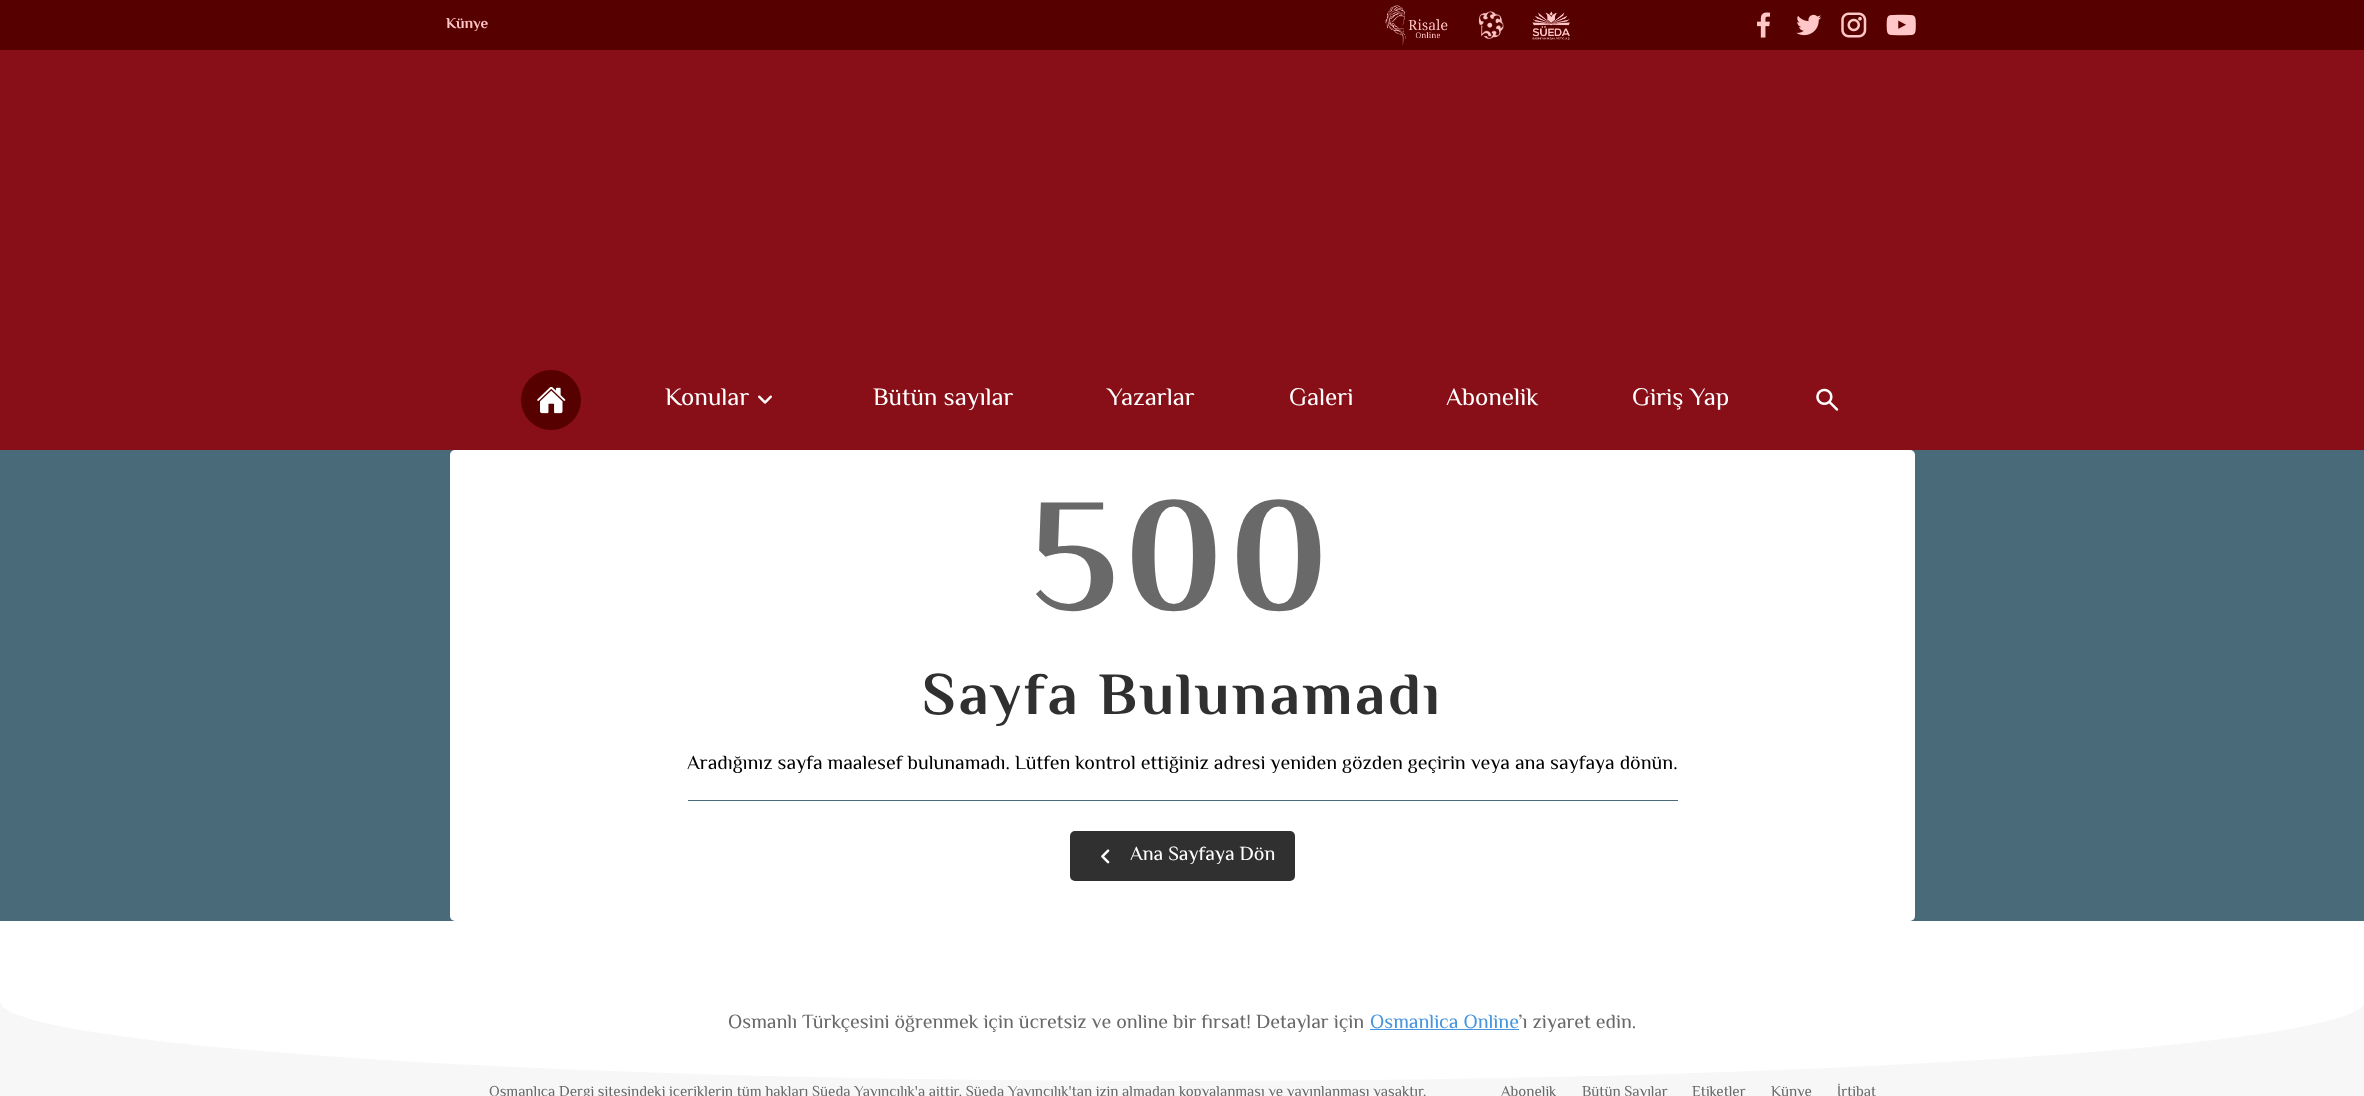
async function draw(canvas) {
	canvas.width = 2364;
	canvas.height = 1096;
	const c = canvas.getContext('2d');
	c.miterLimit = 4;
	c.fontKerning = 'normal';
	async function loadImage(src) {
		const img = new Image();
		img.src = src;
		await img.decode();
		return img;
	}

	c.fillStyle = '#496a79';
	c.fillRect(0, 0, 2364, 1096);
	c.fillStyle = '#570000';
	c.fillRect(0, 0, 2364, 50);
	c.font = 'bold 15px El Messiri';
	c.fillStyle = '#ffc7c7';
	c.fillText('Künye', 446, 28);
	c.drawImage(await loadImage('img1.png'), 1385, 5, 63, 40);
	c.drawImage(await loadImage('img2.png'), 1478, 11, 26, 28);
	c.drawImage(await loadImage('img3.png'), 1532, 11, 38, 29);
	c.drawImage(await loadImage('img4.png'), 1757, 12, 13, 26);
	c.drawImage(await loadImage('img5.png'), 1796, 14, 26, 22);
	c.drawImage(await loadImage('img6.png'), 1841, 12, 26, 26);
	c.drawImage(await loadImage('img7.png'), 1886, 14, 30, 22);
	c.fillStyle = '#880f17';
	c.fillRect(0, 50, 2364, 400);
	c.fillStyle = '#570000';
	c.beginPath();
	c.arc(551, 400, 30, 0, 2 * Math.PI);
	c.fill();
	c.drawImage(await loadImage('img8.png'), 537, 386, 29, 28);
	c.font = '25px El Messiri';
	c.fillStyle = '#fff';
	c.fillText('Konular', 665, 405);
	c.drawImage(await loadImage('img9.png'), 758, 395, 14, 9);
	for (const [text, x, y] of [
		['Bütün sayılar', 873, 405],
		['Yazarlar', 1107, 405],
		['Galeri', 1289, 405],
		['Abonelik', 1446, 405],
		['Giriş Yap', 1632, 405],
	]) {
		c.fillText(text, x, y);
	}
	c.drawImage(await loadImage('img10.png'), 1816, 388, 23, 23);
	c.beginPath();
	c.roundRect(450, 450, 1465, 471, 5);
	c.fill();
	c.letterSpacing = '8px';
	c.font = 'bold 160px El Messiri';
	c.fillStyle = '#696969';
	c.fillText('500', 1030, 608);
	c.letterSpacing = '3px';
	c.font = 'bold 60px El Messiri';
	c.fillStyle = '#303030';
	c.fillText('Sayfa Bulunamadı', 922, 714);
	c.fillStyle = '#496a79';
	c.fillRect(688, 800, 990, 1);
	c.letterSpacing = '0px';
	c.font = '20px El Messiri';
	c.fillStyle = '#000';
	c.fillText('Aradığınız sayfa maalesef bulunamadı. Lütfen kontrol ettiğiniz adresi yeniden gözden geçirin veya ana sayfaya dönün.', 687, 769);
	c.fillStyle = '#303030';
	c.beginPath();
	c.roundRect(1070, 831, 225, 50, 5);
	c.fill();
	c.drawImage(await loadImage('img11.png'), 1101, 849, 9, 15);
	c.fillStyle = '#fff';
	c.fillText('Ana Sayfaya Dön', 1130, 860);
	c.fillStyle = '#f7f7f7';
	c.fillRect(0, 1001, 2364, 95);
	c.fillStyle = '#fff';
	c.beginPath();
	c.moveTo(0, 921);
	c.lineTo(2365, 921);
	c.lineTo(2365, 1001);
	c.bezierCurveTo(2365, 1045, 1836, 1081, 1182, 1081);
	c.bezierCurveTo(529, 1081, 0, 1045, 0, 1001);
	c.closePath();
	c.fill();
	c.fillStyle = '#696969';
	c.fillText('Osmanlı Türkçesini öğrenmek için ücretsiz ve online bir fırsat! Detaylar için', 728, 1028);
	c.fillStyle = '#4795dd';
	c.fillText('Osmanlica Online', 1370, 1028);
	c.fillRect(1370, 1029, 149, 1);
	c.fillStyle = '#696969';
	c.fillText('’ı ziyaret edin.', 1518, 1028);
	c.font = '15px El Messiri';
	for (const [text, x, y] of [
		['Osmanlıca Dergi sitesindeki içeriklerin tüm hakları Süeda Yayıncılık\'a aittir. Süeda Yayıncılık\'tan izin almadan kopyalanması ve yayınlanması yasaktır.', 489, 1096],
		['Abonelik', 1501, 1096],
		['Bütün Sayılar', 1582, 1096],
		['Etiketler', 1692, 1096],
		['Künye', 1771, 1096],
		['İrtibat', 1837, 1096],
	]) {
		c.fillText(text, x, y);
	}
}

draw(document.querySelector('canvas'));
